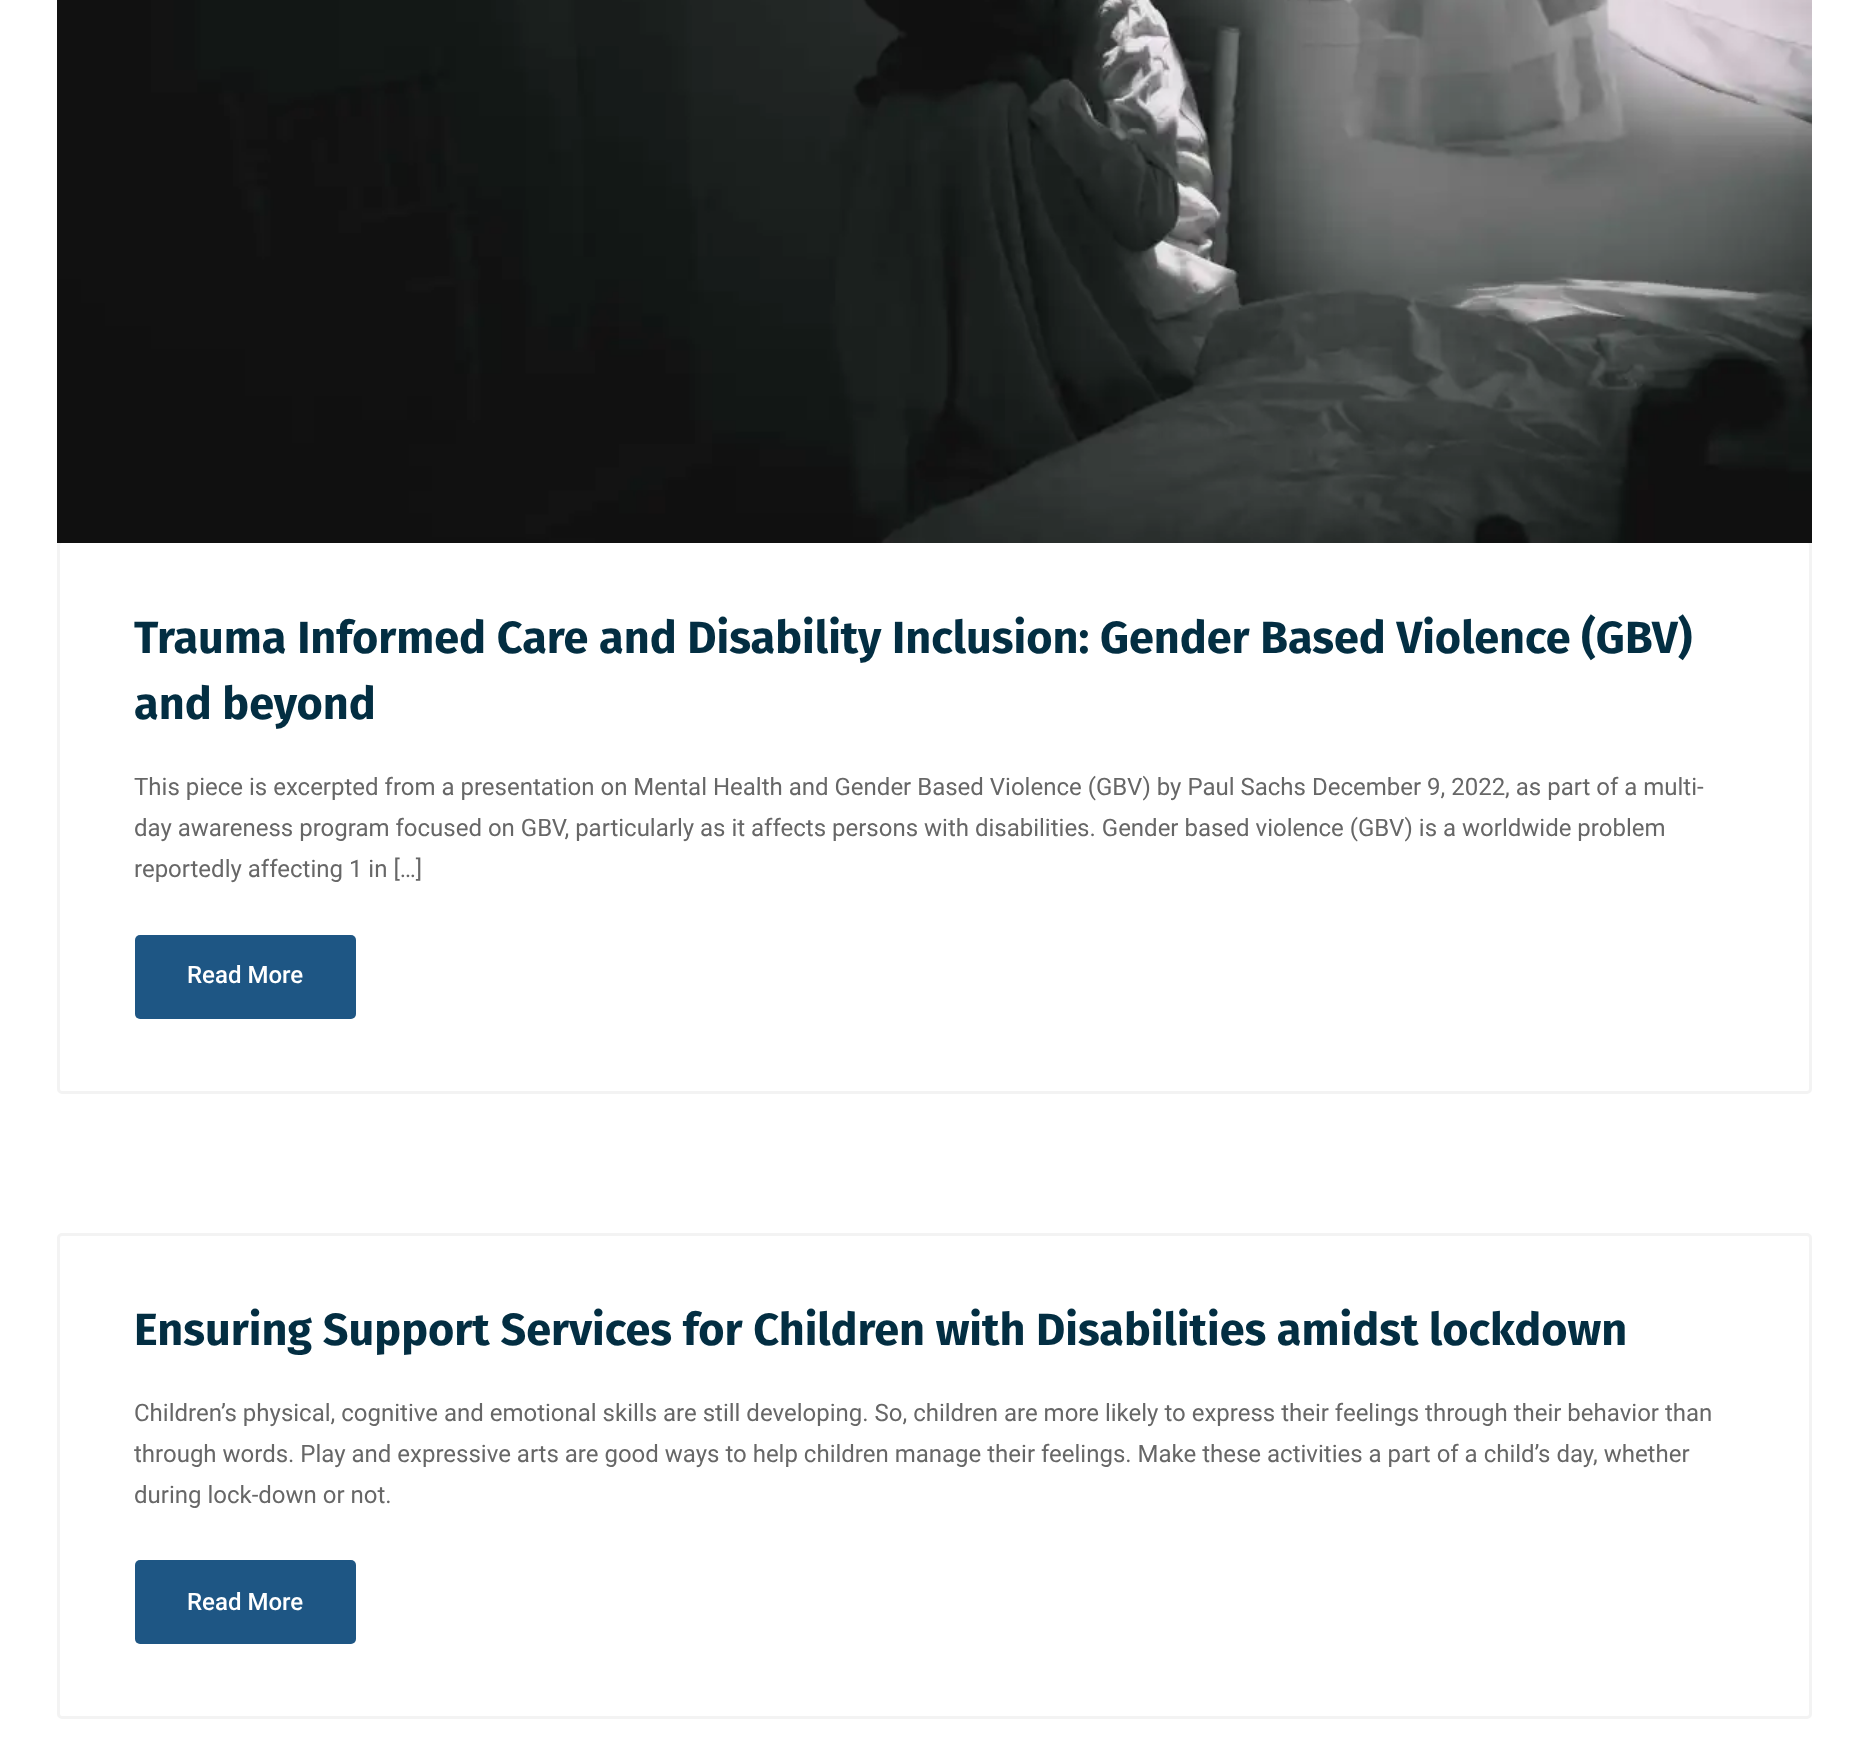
async function draw(canvas) {
	canvas.width = 1867;
	canvas.height = 1743;
	const c = canvas.getContext('2d');
	c.miterLimit = 4;
	c.fontKerning = 'normal';
	async function loadImage(src) {
		const img = new Image();
		img.src = src;
		await img.decode();
		return img;
	}

	c.fillStyle = '#fff';
	c.fillRect(0, 0, 1867, 1743);
	c.beginPath();
	c.roundRect(58.5, 541.5, 1752, 551, 3.5);
	c.strokeStyle = '#f3f3f3';
	c.lineWidth = 3;
	c.stroke();
	c.drawImage(await loadImage('img1.png'), 57, 0, 1755, 543);
	c.font = 'bold 45px Fira Sans';
	c.fillStyle = '#032e42';
	c.fillText('Trauma Informed Care and Disability Inclusion: Gender Based Violence (GBV)', 134, 653);
	c.fillText('and beyond', 134, 719);
	c.font = '24px Roboto';
	c.fillStyle = '#676767';
	for (const [text, x, y] of [
		['This piece is excerpted from a presentation on Mental Health and Gender Based Violence (GBV) by Paul Sachs December 9, 2022, as part of a multi-', 134, 795],
		['day awareness program focused on GBV, particularly as it affects persons with disabilities. Gender based violence (GBV) is a worldwide problem', 134, 836],
		['reportedly affecting 1 in […]', 134, 877],
	]) {
		c.fillText(text, x, y);
	}
	c.fillStyle = '#1e5684';
	c.beginPath();
	c.roundRect(135, 935, 221, 84, 5);
	c.fill();
	c.font = '500 24px Roboto';
	c.fillStyle = '#fff';
	c.fillText('Read More', 187, 983);
	c.beginPath();
	c.roundRect(58.5, 1234.5, 1752, 483, 3.5);
	c.stroke();
	c.font = 'bold 45px Fira Sans';
	c.fillStyle = '#032e42';
	c.fillText('Ensuring Support Services for Children with Disabilities amidst lockdown', 134, 1345);
	c.font = '24px Roboto';
	c.fillStyle = '#676767';
	for (const [text, x, y] of [
		['Children’s physical, cognitive and emotional skills are still developing. So, children are more likely to express their feelings through their behavior than', 134, 1421],
		['through words. Play and expressive arts are good ways to help children manage their feelings. Make these activities a part of a child’s day, whether', 134, 1462],
		['during lock-down or not.', 134, 1503],
	]) {
		c.fillText(text, x, y);
	}
	c.fillStyle = '#1e5684';
	c.beginPath();
	c.roundRect(135, 1560, 221, 84, 5);
	c.fill();
	c.font = '500 24px Roboto';
	c.fillStyle = '#fff';
	c.fillText('Read More', 187, 1610);
}

draw(document.querySelector('canvas'));
